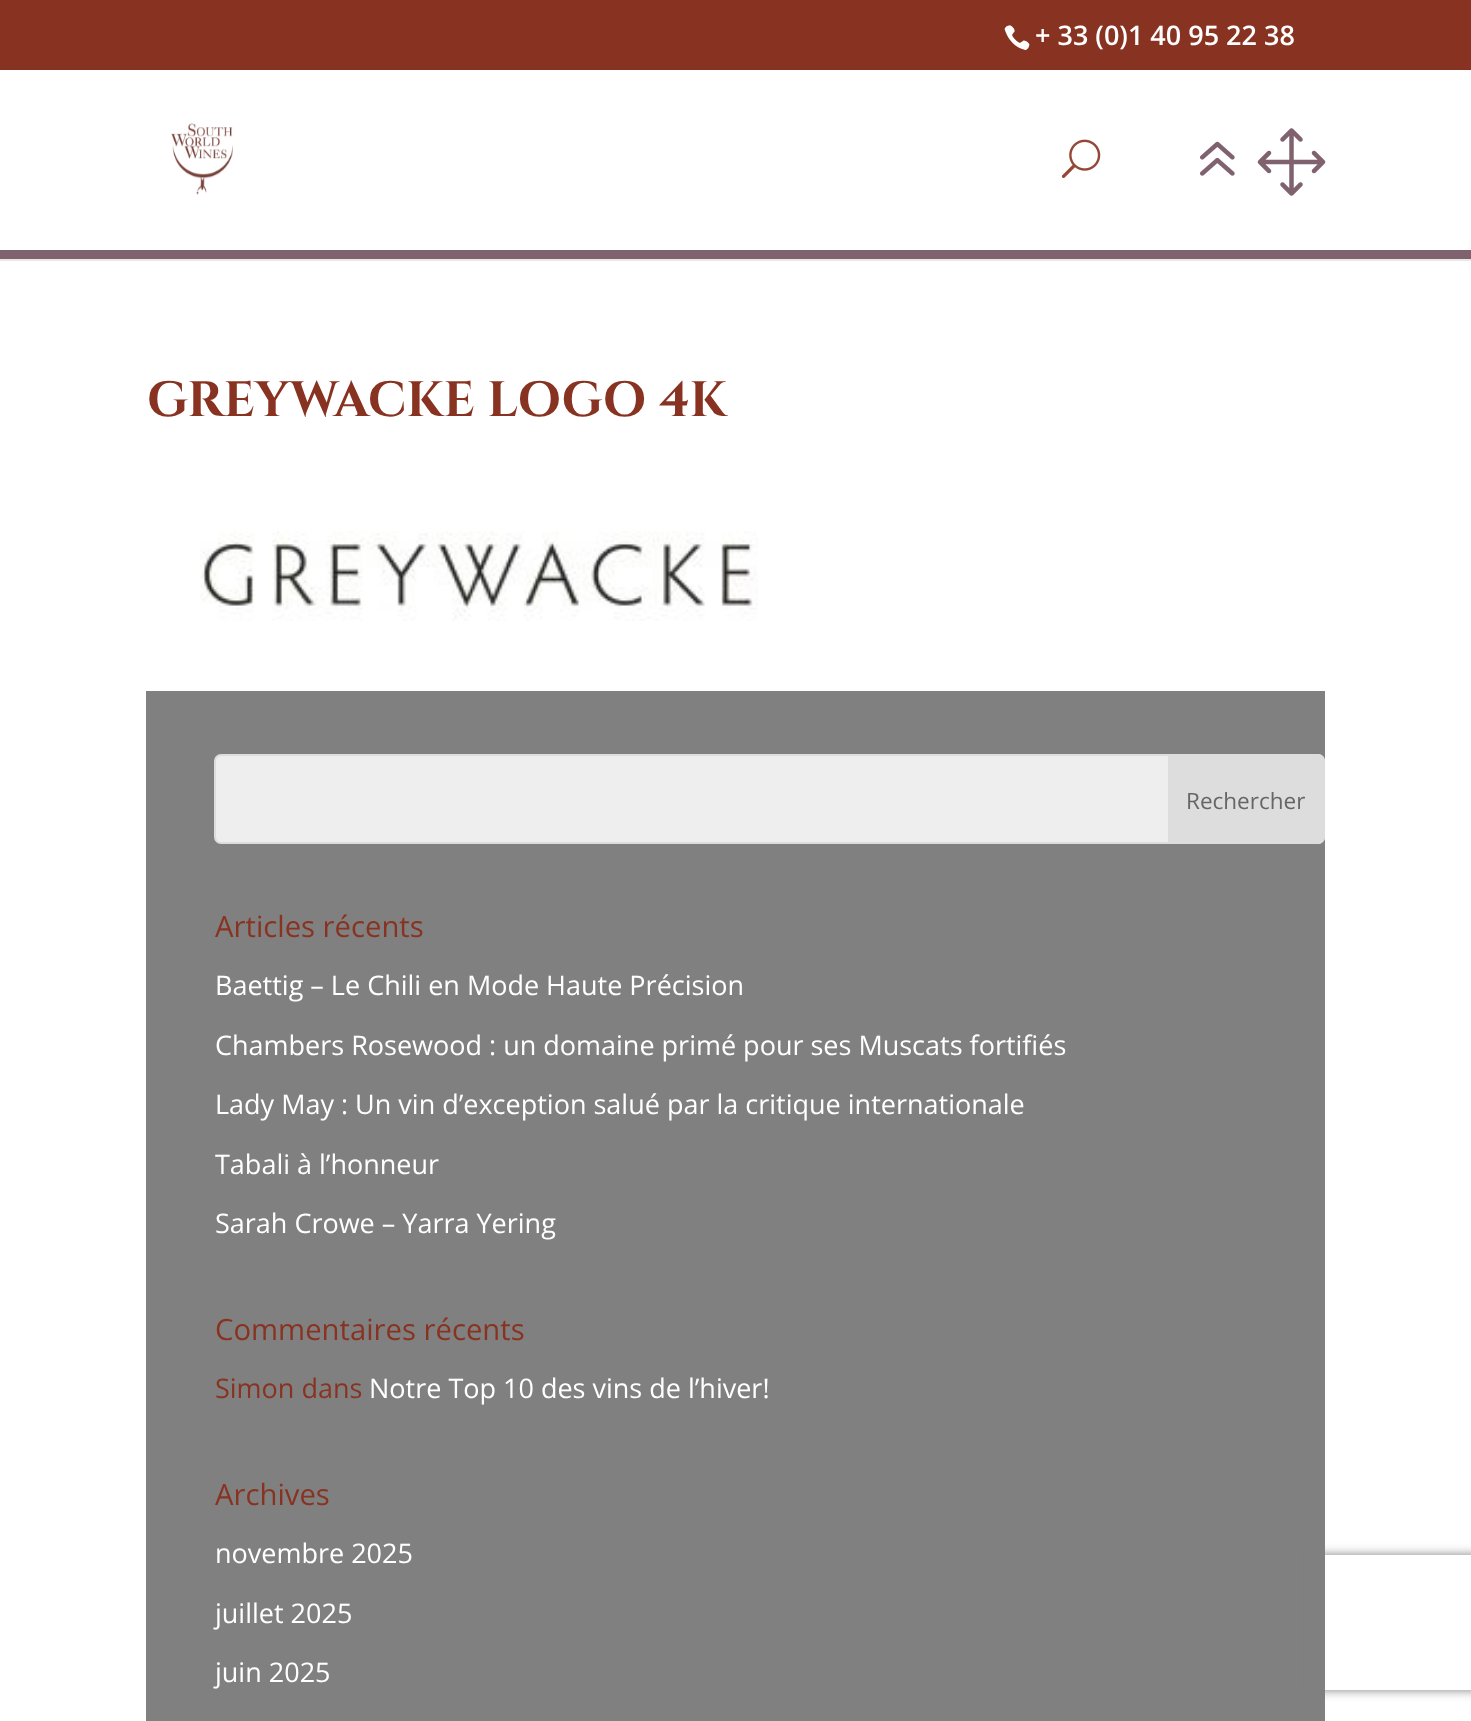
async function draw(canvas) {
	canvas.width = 1471;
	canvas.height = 1721;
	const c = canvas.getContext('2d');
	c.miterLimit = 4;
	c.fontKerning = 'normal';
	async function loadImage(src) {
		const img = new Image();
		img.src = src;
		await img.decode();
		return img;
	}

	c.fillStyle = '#fff';
	c.fillRect(0, 0, 1471, 1721);
	c.fillStyle = '#883321';
	c.fillRect(0, 0, 1471, 70);
	c.drawImage(await loadImage('img1.png'), 1004, 25, 26, 26);
	c.font = '600 27px Open Sans';
	c.fillStyle = '#fff';
	c.fillText('+ 33 (0)1 40 95 22 38', 1035, 45);
	c.fillStyle = '#e8e8e8';
	c.beginPath();
	c.moveTo(0, 259);
	c.lineTo(0, 261);
	c.lineTo(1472, 261);
	c.lineTo(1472, 72);
	c.lineTo(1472, 259);
	c.closePath();
	c.fill();
	c.fillStyle = '#80626e';
	c.fillRect(0, 250, 1471, 9);
	c.drawImage(await loadImage('img2.png'), 171, 123, 62, 72);
	c.drawImage(await loadImage('img3.png'), 1061, 139, 40, 39);
	c.drawImage(await loadImage('img4.png'), 1200, 128, 126, 68);
	c.font = 'bold 49.5px Cinzel';
	c.fillStyle = '#883321';
	c.fillText('GREYWACKE LOGO 4K', 147, 416);
	c.drawImage(await loadImage('img5.png'), 200, 531, 558, 90);
	c.fillStyle = '#808080';
	c.fillRect(146, 691, 1179, 1030);
	c.fillStyle = '#eee';
	c.beginPath();
	c.roundRect(215, 755, 1109, 88, 6);
	c.fill();
	c.strokeStyle = '#ddd';
	c.lineWidth = 2;
	c.stroke();
	c.fillStyle = '#ddd';
	c.beginPath();
	c.roundRect(1169, 755, 155, 88, [0, 6, 6, 0]);
	c.fill();
	c.stroke();
	c.font = '22.5px Open Sans';
	c.fillStyle = '#666';
	c.fillText('Rechercher', 1186, 809);
	c.font = '29.25px Open Sans';
	c.fillStyle = '#883321';
	c.fillText('Articles récents', 215, 937);
	c.font = '27px Open Sans';
	c.fillStyle = '#fff';
	for (const [text, x, y] of [
		['Baettig – Le Chili en Mode Haute Précision', 215, 995],
		['Chambers Rosewood : un domaine primé pour ses Muscats fortifiés', 215, 1055],
		['Lady May : Un vin d’exception salué par la critique internationale', 215, 1114],
		['Tabali à l’honneur', 215, 1174],
		['Sarah Crowe – Yarra Yering', 215, 1233],
	]) {
		c.fillText(text, x, y);
	}
	c.font = '29.25px Open Sans';
	c.fillStyle = '#883321';
	c.fillText('Commentaires récents', 215, 1340);
	c.font = '27px Open Sans';
	c.fillText('Simon dans', 215, 1398);
	c.fillStyle = '#fff';
	c.fillText('Notre Top 10 des vins de l’hiver!', 369, 1398);
	c.font = '29.25px Open Sans';
	c.fillStyle = '#883321';
	c.fillText('Archives', 215, 1505);
	c.font = '27px Open Sans';
	c.fillStyle = '#fff';
	for (const [text, x, y] of [
		['novembre 2025', 215, 1563],
		['juillet 2025', 215, 1623],
		['juin 2025', 215, 1682],
	]) {
		c.fillText(text, x, y);
	}
	c.save();
	c.beginPath();
	c.moveTo(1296, 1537);
	c.lineTo(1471, 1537);
	c.lineTo(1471, 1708);
	c.lineTo(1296, 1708);
	c.closePath();
	c.moveTo(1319, 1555);
	c.lineTo(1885, 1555);
	c.bezierCurveTo(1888, 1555, 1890, 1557, 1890, 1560);
	c.lineTo(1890, 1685);
	c.bezierCurveTo(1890, 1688, 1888, 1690, 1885, 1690);
	c.lineTo(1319, 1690);
	c.bezierCurveTo(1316, 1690, 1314, 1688, 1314, 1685);
	c.lineTo(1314, 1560);
	c.bezierCurveTo(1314, 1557, 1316, 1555, 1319, 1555);
	c.closePath();
	c.clip('evenodd');
	c.fillStyle = '#808080';
	c.filter = 'blur(5.5px)';
	c.beginPath();
	c.roundRect(1314, 1555, 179, 135, 5);
	c.fill();
	c.filter = 'none';
	c.restore();
}

draw(document.querySelector('canvas'));
